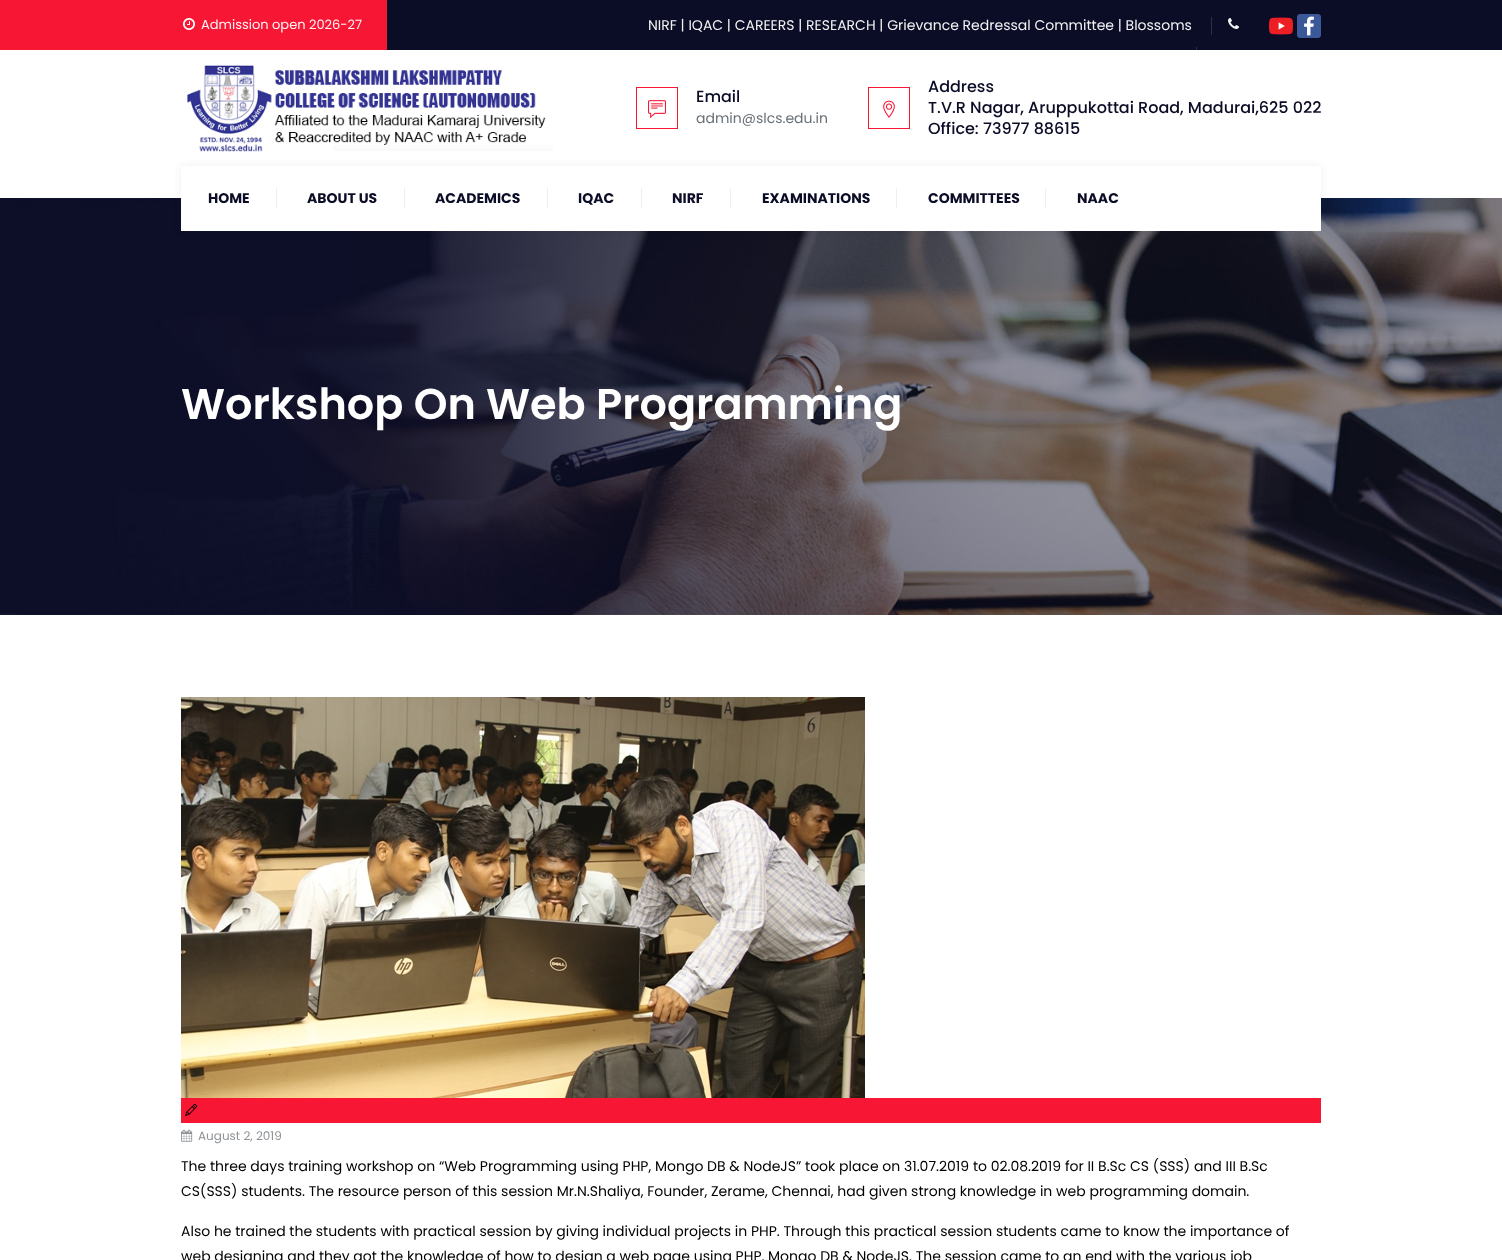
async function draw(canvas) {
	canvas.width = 1502;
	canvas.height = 1260;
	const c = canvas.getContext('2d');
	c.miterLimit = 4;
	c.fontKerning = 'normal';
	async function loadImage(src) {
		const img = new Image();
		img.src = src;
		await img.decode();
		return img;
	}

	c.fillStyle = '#fff';
	c.fillRect(0, 0, 1502, 1260);
	for (const [x, y, w, h, color] of [
		[387, 0, 1115, 50, '#0b0c26'],
		[1196, 47, 1, 3, '#2d2e44'],
		[0, 0, 387, 50, '#f71735'],
	]) {
		c.fillStyle = color;
		c.fillRect(x, y, w, h);
	}
	c.drawImage(await loadImage('img1.png'), 183, 18, 12, 12);
	c.font = '13px Poppins';
	c.fillStyle = '#fff3f5';
	c.fillText('Admission open 2026-27', 201, 29);
	c.font = '14px Poppins';
	c.fillStyle = '#f3f3f4';
	c.fillText('NIRF | IQAC | CAREERS | RESEARCH | Grievance Redressal Committee | Blossoms', 648, 30);
	c.fillStyle = '#2d2e44';
	c.fillRect(1211, 17, 1, 18);
	c.drawImage(await loadImage('img2.png'), 1228, 18, 11, 11);
	c.drawImage(await loadImage('img3.png'), 1269, 17, 24, 18);
	c.drawImage(await loadImage('img4.png'), 1297, 14, 24, 24);
	c.drawImage(await loadImage('img5.png'), 187, 65, 366, 87);
	c.strokeStyle = '#f71735';
	c.strokeRect(636.5, 87.5, 41, 41);
	c.drawImage(await loadImage('img6.png'), 648, 100, 18, 19);
	c.font = '500 16px Poppins';
	c.fillStyle = '#0b0c26';
	c.fillText('Email', 696, 102);
	c.font = '14px Poppins';
	c.fillStyle = '#687076';
	c.fillText('admin@slcs.edu.in', 696, 123);
	c.strokeRect(868.5, 87.5, 41, 41);
	c.drawImage(await loadImage('img7.png'), 883, 100, 12, 18);
	c.font = '500 16px Poppins';
	c.fillStyle = '#0b0c26';
	for (const [text, x, y] of [
		['Address', 928, 92],
		['T.V.R Nagar, Aruppukottai Road, Madurai,625 022', 928, 113],
		['Office: 73977 88615', 928, 134],
	]) {
		c.fillText(text, x, y);
	}
	c.drawImage(await loadImage('img8.png'), 0, 198, 1502, 417);
	c.fillStyle = '#06163a12';
	c.filter = 'blur(4.5px)';
	c.beginPath();
	c.rect(181, 166, 1140, 65);
	c.fill();
	c.filter = 'none';
	c.fillStyle = '#fff';
	c.fillRect(181, 166, 1140, 65);
	c.font = 'bold 14px Poppins';
	c.fillStyle = '#0b0c26';
	c.fillText('HOME', 208, 203);
	c.fillStyle = '#eeeef0';
	c.fillRect(276, 188, 1, 20);
	c.fillStyle = '#0b0c26';
	c.fillText('ABOUT US', 307, 203);
	c.fillStyle = '#eeeef0';
	c.fillRect(404, 188, 1, 20);
	c.fillStyle = '#0b0c26';
	c.fillText('ACADEMICS', 435, 203);
	c.fillStyle = '#eeeef0';
	c.fillRect(547, 188, 1, 20);
	c.fillStyle = '#0b0c26';
	c.fillText('IQAC', 578, 203);
	c.fillStyle = '#eeeef0';
	c.fillRect(641, 188, 1, 20);
	c.fillStyle = '#0b0c26';
	c.fillText('NIRF', 672, 203);
	c.fillStyle = '#eeeef0';
	c.fillRect(730, 188, 1, 20);
	c.fillStyle = '#0b0c26';
	c.fillText('EXAMINATIONS', 762, 203);
	c.fillStyle = '#eeeef0';
	c.fillRect(896, 188, 1, 20);
	c.fillStyle = '#0b0c26';
	c.fillText('COMMITTEES', 928, 203);
	c.fillStyle = '#eeeef0';
	c.fillRect(1045, 188, 1, 20);
	c.fillStyle = '#0b0c26';
	c.fillText('NAAC', 1077, 203);
	c.font = '600 43px Poppins';
	c.fillStyle = '#fff';
	c.fillText('Workshop On Web Programming', 181, 419);
	c.drawImage(await loadImage('img9.png'), 181, 697, 684, 401);
	c.fillStyle = '#f71735';
	c.fillRect(181, 1098, 1140, 25);
	c.drawImage(await loadImage('img10.png'), 185, 1104, 13, 12);
	c.drawImage(await loadImage('img11.png'), 181, 1129, 12, 13);
	c.font = '12px Poppins';
	c.fillStyle = '#8d9297';
	c.fillText('August 2, 2019', 198, 1140);
	c.font = '14px Poppins';
	c.fillStyle = '#000';
	for (const [text, x, y] of [
		['The three days training workshop on “Web Programming using PHP, Mongo DB & NodeJS” took place on 31.07.2019 to 02.08.2019 for II B.Sc CS (SSS) and III B.Sc', 181, 1171],
		['CS(SSS) students. The resource person of this session Mr.N.Shaliya, Founder, Zerame, Chennai, had given strong knowledge in web programming domain.', 181, 1196],
		['Also he trained the students with practical session by giving individual projects in PHP. Through this practical session students came to know the importance of', 181, 1236],
		['web designing and they got the knowledge of how to design a web page using PHP, Mongo DB & NodeJS. The session came to an end with the various job', 181, 1261],
	]) {
		c.fillText(text, x, y);
	}
}

draw(document.querySelector('canvas'));
